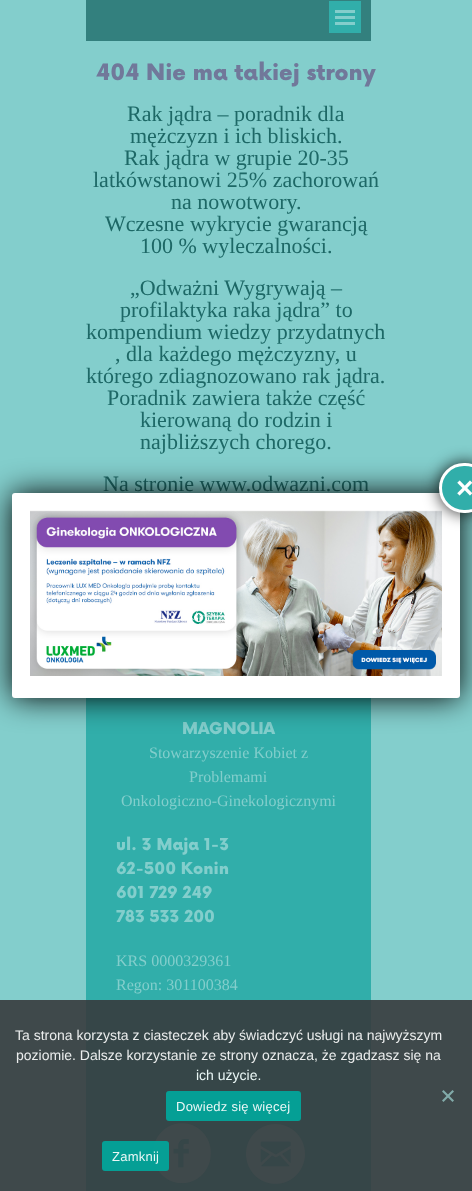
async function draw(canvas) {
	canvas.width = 472;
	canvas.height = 1191;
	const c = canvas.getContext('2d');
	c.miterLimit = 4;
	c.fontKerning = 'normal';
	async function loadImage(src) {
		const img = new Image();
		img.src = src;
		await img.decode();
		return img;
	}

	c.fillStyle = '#83cecc';
	c.fillRect(0, 0, 472, 1191);
	for (const [x, y, w, h, color] of [
		[0, 1000, 472, 191, '#3f494b'],
		[86, 0, 285, 41, '#33807e'],
		[329, 1, 32, 32, '#31aeaa'],
		[335, 10, 20, 3, '#83cecc'],
		[335, 16, 20, 3, '#83cecc'],
		[335, 22, 20, 3, '#83cecc'],
	]) {
		c.fillStyle = color;
		c.fillRect(x, y, w, h);
	}
	c.font = '900 22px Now';
	c.fillStyle = '#71789a';
	c.fillText('404 Nie ma takiej strony', 96, 80);
	c.font = '22px Liberation Serif';
	c.fillStyle = '#1d6866';
	for (const [text, x, y] of [
		['Rak jądra – poradnik dla', 127, 121],
		['mężczyzn i ich bliskich.', 130, 143],
		['Rak jądra w grupie 20-35', 124, 165],
		['latkówstanowi 25% zachorowań', 93, 187],
		['na nowotwory.', 171, 209],
		['Wczesne wykrycie gwarancją', 105, 231],
		['100 % wyleczalności.', 140, 253],
		['„Odważni Wygrywają –', 130, 295],
		['profilaktyka raka jądra” to', 120, 317],
		['kompendium wiedzy przydatnych', 86, 339],
		[', dla każdego mężczyzny, u', 115, 361],
		['którego zdiagnozowano rak jądra.', 86, 383],
		['Poradnik zawiera także część', 107, 405],
		['kierowaną do rodzin i', 140, 427],
		['najbliższych chorego.', 140, 449],
		['Na stronie www.odwazni.com', 103, 491],
	]) {
		c.fillText(text, x, y);
	}
	c.fillStyle = '#31aeaa';
	c.fillRect(86, 698, 285, 302);
	c.fillStyle = '#364648';
	c.fillRect(86, 1000, 285, 191);
	c.font = '900 16px Now';
	c.fillStyle = '#83cecc';
	c.fillText('MAGNOLIA', 182, 734);
	c.font = '16px Liberation Serif';
	for (const [text, x, y] of [
		['Stowarzyszenie Kobiet z', 149, 758],
		['Problemami', 189, 782],
		['Onkologiczno-Ginekologicznymi', 121, 806],
	]) {
		c.fillText(text, x, y);
	}
	c.font = '900 16px Now';
	for (const [text, x, y] of [
		['ul. 3 Maja 1-3', 116, 850],
		['62-500 Konin', 116, 874],
		['601 729 249', 116, 898],
		['783 533 200', 116, 922],
	]) {
		c.fillText(text, x, y);
	}
	c.font = '16px Liberation Serif';
	c.fillText('KRS 0000329361', 116, 966);
	c.fillText('Regon: 301100384', 116, 990);
	c.drawImage(await loadImage('img1.png'), 153, 1123, 58, 61);
	c.drawImage(await loadImage('img2.png'), 246, 1124, 59, 60);
	c.fillStyle = '#020202';
	c.filter = 'blur(15px)';
	c.beginPath();
	c.roundRect(12, 493, 448, 205, 3);
	c.fill();
	c.filter = 'none';
	c.fillStyle = '#fff';
	c.beginPath();
	c.roundRect(12, 493, 448, 205, 3);
	c.fill();
	c.drawImage(await loadImage('img3.png'), 30, 510, 412, 166);
	c.fillStyle = '#020202bf';
	c.filter = 'blur(7.5px)';
	c.beginPath();
	c.roundRect(438, 462, 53, 52, 26);
	c.fill();
	c.filter = 'none';
	c.fillStyle = '#31aeaa';
	c.beginPath();
	c.roundRect(440.5, 464.5, 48, 47, 23.5);
	c.fill();
	c.strokeStyle = '#fff';
	c.lineWidth = 3;
	c.stroke();
	c.font = 'bold 30px Liberation Sans';
	c.fillStyle = '#fff';
	c.fillText('×', 456, 498);
	c.font = '14px Liberation Sans';
	c.fillStyle = '#ebeded';
	c.fillText('Ta strona korzysta z ciasteczek aby świadczyć usługi na najwyższym', 15, 1040);
	c.fillText('poziomie. Dalsze korzystanie ze strony oznacza, że zgadzasz się na', 16, 1060);
	c.fillStyle = '#eaf7f6';
	c.fillText('ich użycie.', 196, 1080);
	c.fillStyle = '#82abaa';
	c.beginPath();
	c.moveTo(452.5, 1090);
	c.lineTo(454, 1091.5);
	c.lineTo(443.5, 1102);
	c.lineTo(442, 1100.5);
	c.closePath();
	c.fill();
	c.beginPath();
	c.moveTo(442, 1091.5);
	c.lineTo(443.5, 1090);
	c.lineTo(454, 1100.5);
	c.lineTo(452.5, 1102);
	c.closePath();
	c.fill();
	c.fillStyle = '#00a99de6';
	c.beginPath();
	c.roundRect(166, 1091, 135, 30, 3);
	c.fill();
	c.letterSpacing = '0.25px';
	c.font = '13px Liberation Sans';
	c.fillStyle = '#eaf7f6';
	c.fillText('Dowiedz się więcej', 176, 1111);
	c.fillStyle = '#00a99de6';
	c.beginPath();
	c.roundRect(102, 1141, 67, 30, 3);
	c.fill();
	c.fillStyle = '#eaf7f6';
	c.fillText('Zamknij', 112, 1161);
}

draw(document.querySelector('canvas'));
